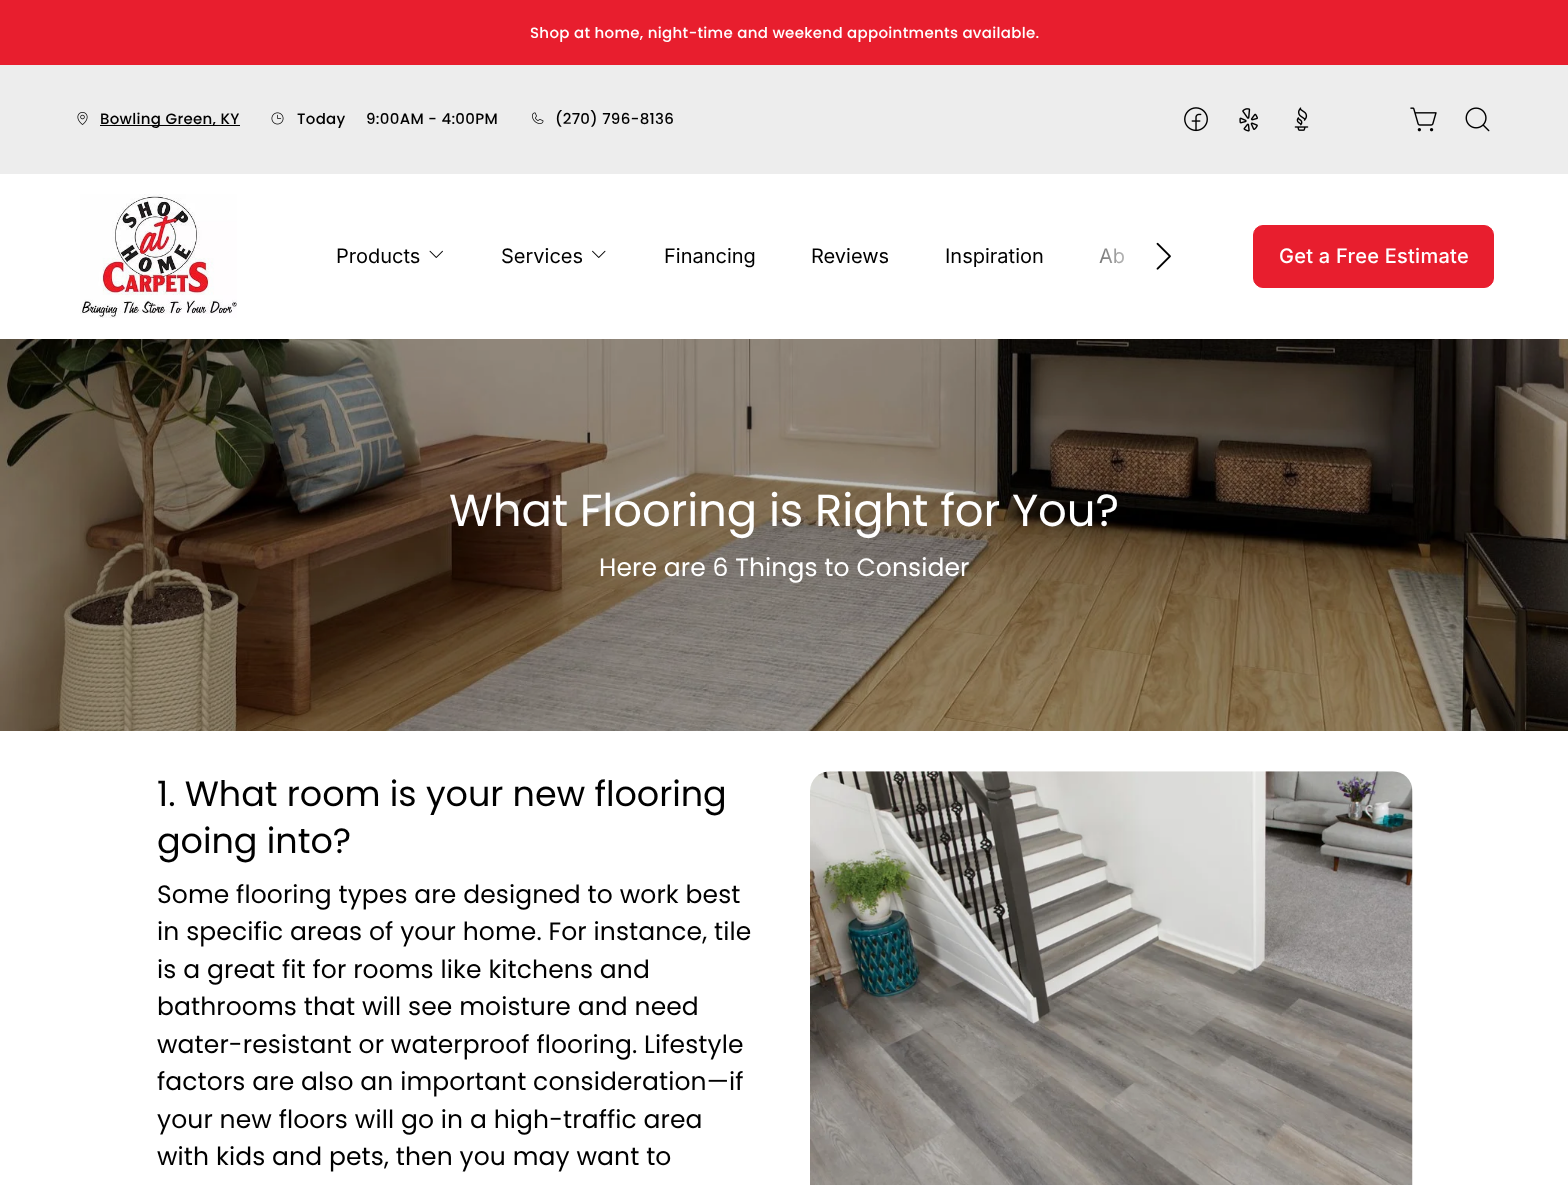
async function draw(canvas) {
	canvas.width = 1568;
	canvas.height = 1185;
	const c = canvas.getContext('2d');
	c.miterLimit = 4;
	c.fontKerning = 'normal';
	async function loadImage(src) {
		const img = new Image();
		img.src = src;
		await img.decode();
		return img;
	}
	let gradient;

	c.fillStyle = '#fff';
	c.fillRect(0, 0, 1568, 1185);
	c.fillStyle = '#e81e2e';
	c.fillRect(0, 0, 1568, 65);
	c.letterSpacing = '0.3px';
	c.font = '500 15px Poppins';
	c.fillStyle = '#fff';
	c.fillText('Shop at home, night-time and weekend appointments available.', 530, 38);
	c.fillStyle = '#ededed';
	c.fillRect(0, 65, 1568, 109);
	c.drawImage(await loadImage('img1.png'), 77, 112, 11, 13);
	c.fillStyle = '#000';
	c.fillRect(100, 125, 140, 1);
	c.fillText('Bowling Green, KY', 100, 124);
	c.drawImage(await loadImage('img2.png'), 271, 112, 13, 13);
	c.fillText('Today', 297, 124);
	c.fillText('9:00AM - 4:00PM', 366, 124);
	c.drawImage(await loadImage('img3.png'), 532, 112, 12, 12);
	c.fillText('(270) 796-8136', 555, 124);
	c.drawImage(await loadImage('img4.png'), 1184, 107, 24, 25);
	c.drawImage(await loadImage('img5.png'), 1239, 108, 19, 24);
	c.drawImage(await loadImage('img6.png'), 1294, 107, 15, 24);
	c.drawImage(await loadImage('img7.png'), 1410, 107, 27, 25);
	c.drawImage(await loadImage('img8.png'), 1465, 107, 25, 25);
	c.drawImage(await loadImage('img9.png'), 80, 194, 157, 124);
	c.letterSpacing = '0px';
	c.font = '20px Inter';
	c.fillText('Products', 336, 263);
	c.drawImage(await loadImage('img10.png'), 429, 250, 14, 8);
	c.fillText('Services', 501, 263);
	c.drawImage(await loadImage('img11.png'), 592, 250, 14, 8);
	for (const [text, x, y] of [
		['Financing', 664, 263],
		['Reviews', 811, 263],
		['Inspiration', 945, 263],
		['Ab', 1099, 263],
	]) {
		c.fillText(text, x, y);
	}
	gradient = c.createLinearGradient(1053, 256, 1173, 256);
	gradient.addColorStop(0, '#ffffff00');
	gradient.addColorStop(0.84, '#fff');
	gradient.addColorStop(1, '#fff');
	c.fillStyle = gradient;
	c.fillRect(1099, 248, 25, 16);
	c.drawImage(await loadImage('img12.png'), 1156, 242, 15, 28);
	c.fillStyle = '#e81e2e';
	c.beginPath();
	c.roundRect(1253.5, 225.5, 240, 62, 9.5);
	c.fill();
	c.strokeStyle = '#e81e2e';
	c.stroke();
	c.letterSpacing = '0.25px';
	c.font = '500 20px Inter';
	c.fillStyle = '#fff';
	c.fillText('Get a Free Estimate', 1279, 263);
	c.drawImage(await loadImage('img13.png'), 0, 339, 1568, 392);
	c.letterSpacing = '-0.15px';
	c.font = '45px Poppins';
	c.fillText('What Flooring is Right for You?', 449, 526);
	c.letterSpacing = '0.1px';
	c.font = '25px Poppins';
	c.fillText('Here are 6 Things to Consider', 599, 576);
	c.letterSpacing = '-0.05px';
	c.font = '35px Poppins';
	c.fillStyle = '#000';
	c.fillText('1. What room is your new flooring', 157, 806);
	c.fillText('going into?', 157, 853);
	c.letterSpacing = '0.1px';
	c.font = '25px Poppins';
	for (const [text, x, y] of [
		['Some flooring types are designed to work best', 157, 903],
		['in specific areas of your home. For instance, tile', 157, 940],
		['is a great fit for rooms like kitchens and', 157, 978],
		['bathrooms that will see moisture and need', 157, 1015],
		['water-resistant or waterproof flooring. Lifestyle', 157, 1053],
		['factors are also an important consideration—if', 157, 1090],
		['your new floors will go in a high-traffic area', 157, 1128],
		['with kids and pets, then you may want to', 157, 1165],
	]) {
		c.fillText(text, x, y);
	}
	c.drawImage(await loadImage('img14.png'), 810, 771, 603, 414);
}

draw(document.querySelector('canvas'));
